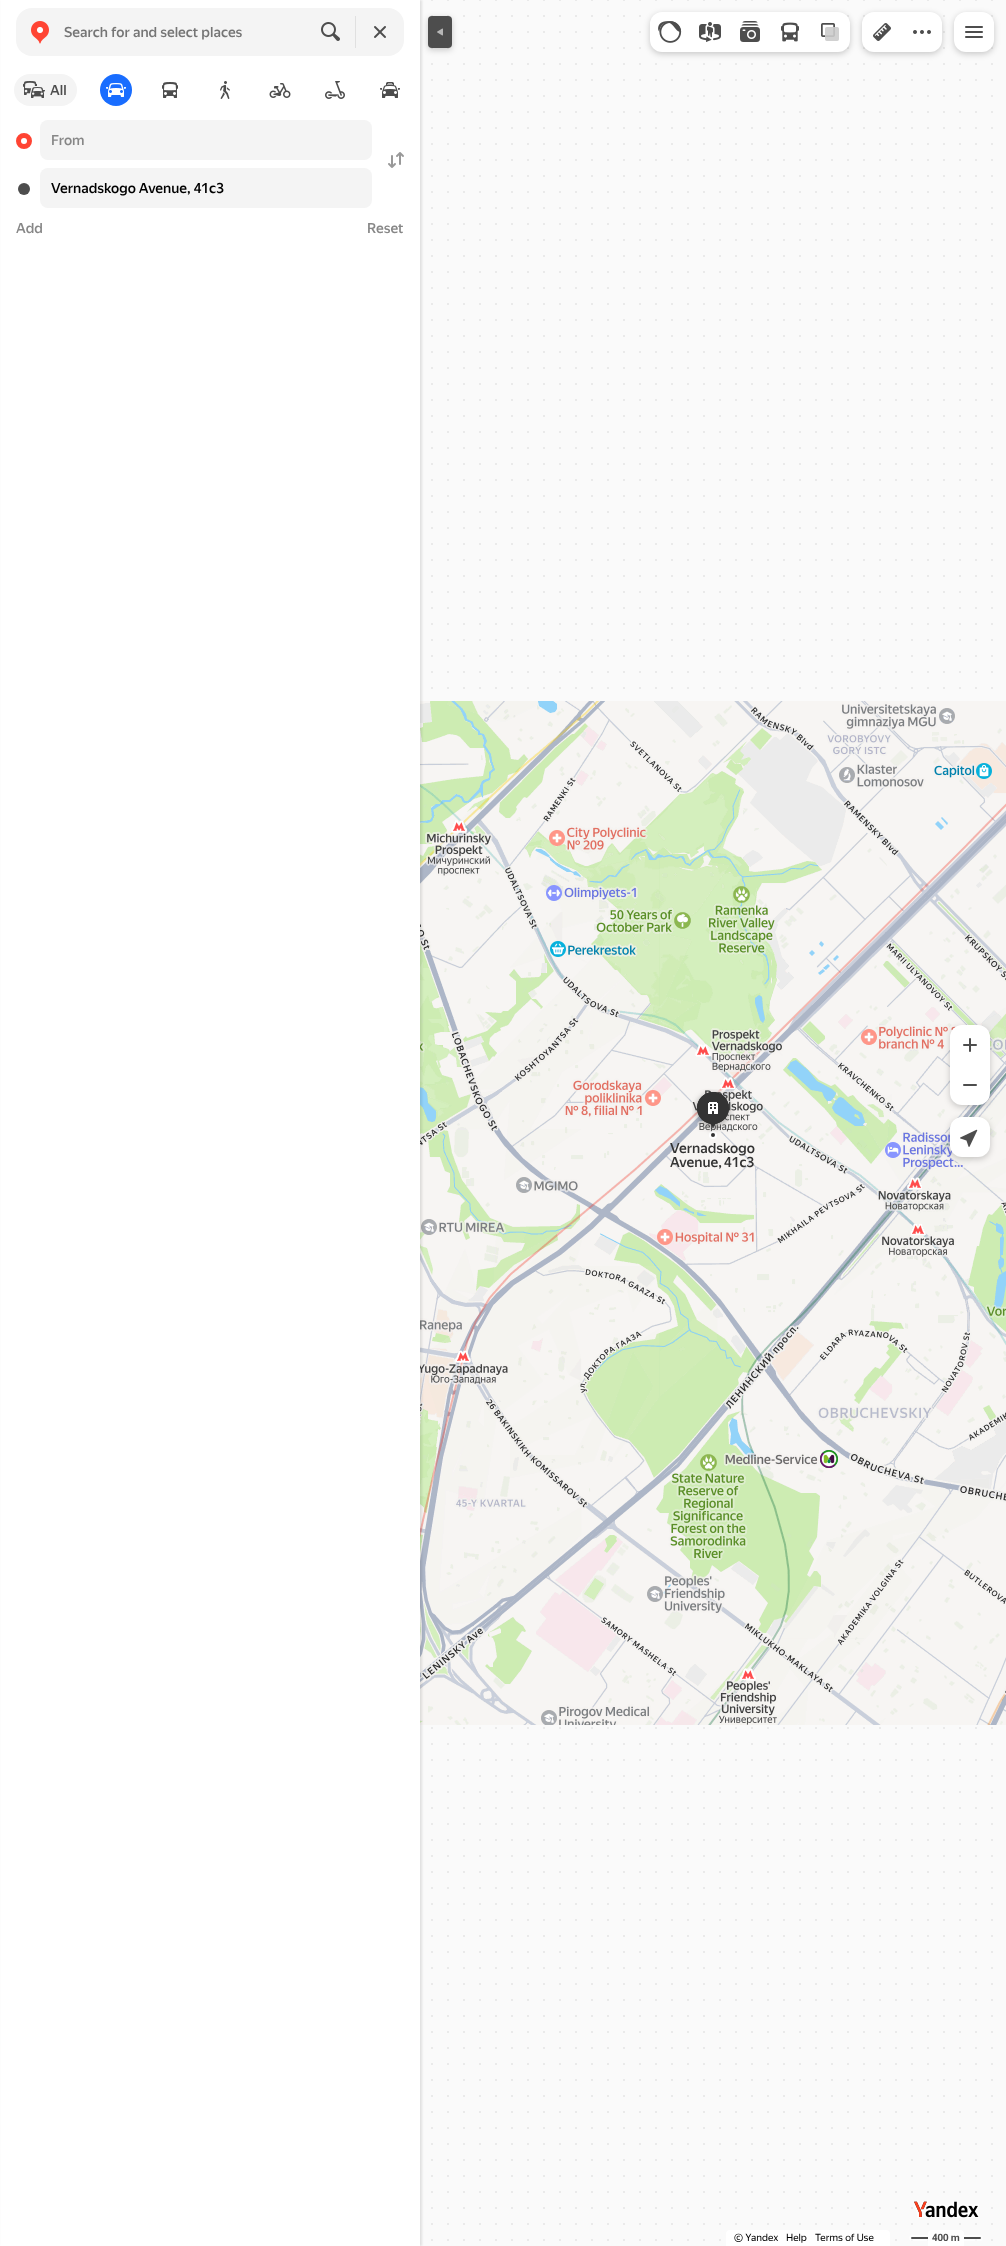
async function draw(canvas) {
	canvas.width = 1006;
	canvas.height = 2246;
	const c = canvas.getContext('2d');
	c.miterLimit = 4;
	c.fontKerning = 'normal';
	async function loadImage(src) {
		const img = new Image();
		img.src = src;
		await img.decode();
		return img;
	}

	c.fillStyle = '#fff';
	c.fillRect(0, 0, 1006, 2246);
	c.drawImage(await loadImage('img1.png'), 420, 0, 586, 2246);
	c.drawImage(await loadImage('img26.png'), 420, 701, 69, 256);
	c.drawImage(await loadImage('img30.png'), 420, 957, 69, 256);
	c.drawImage(await loadImage('img34.png'), 420, 1213, 69, 256);
	c.drawImage(await loadImage('img38.png'), 420, 1469, 69, 256);
	c.fillStyle = '#0000001a';
	c.filter = 'blur(1px)';
	c.beginPath();
	c.rect(2, 0, 420, 2246);
	c.fill();
	c.filter = 'none';
	c.fillStyle = '#00000033';
	c.filter = 'blur(3px)';
	c.beginPath();
	c.roundRect(428, 18, 24, 32, 4);
	c.fill();
	c.filter = 'none';
	c.fillStyle = '#fff';
	c.fillRect(1, 0, 419, 2246);
	c.fillStyle = '#f4f4f4';
	c.beginPath();
	c.roundRect(16, 8, 388, 48, 16);
	c.fill();
	c.drawImage(await loadImage('img2.png'), 31, 21, 18, 23);
	c.font = '500 14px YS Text';
	c.fillStyle = '#757575';
	c.fillText('Search for and select places', 64, 37);
	c.drawImage(await loadImage('img3.png'), 321, 22, 19, 19);
	c.fillStyle = '#e0e0e0';
	c.fillRect(355, 16, 1, 32);
	c.drawImage(await loadImage('img4.png'), 374, 26, 12, 12);
	c.fillStyle = '#00000033';
	c.filter = 'blur(3px)';
	c.beginPath();
	c.roundRect(650, 14, 200, 40, 12);
	c.fill();
	c.filter = 'none';
	c.fillStyle = '#fff';
	c.beginPath();
	c.roundRect(650, 12, 40, 40, [12, 0, 0, 12]);
	c.fill();
	c.drawImage(await loadImage('img5.png'), 658, 21, 24, 22);
	c.fillRect(690, 12, 120, 40);
	c.drawImage(await loadImage('img6.png'), 699, 22, 22, 20);
	c.beginPath();
	c.roundRect(810, 12, 40, 40, [0, 12, 12, 0]);
	c.fill();
	c.drawImage(await loadImage('img7.png'), 821, 23, 18, 18);
	c.drawImage(await loadImage('img8.png'), 740, 21, 20, 21);
	c.drawImage(await loadImage('img9.png'), 781, 22, 18, 20);
	c.fillStyle = '#00000033';
	c.filter = 'blur(3px)';
	c.beginPath();
	c.roundRect(862, 14, 80, 40, 12);
	c.fill();
	c.filter = 'none';
	c.fillStyle = '#fff';
	c.beginPath();
	c.roundRect(862, 12, 40, 40, [12, 0, 0, 12]);
	c.fill();
	c.drawImage(await loadImage('img10.png'), 873, 23, 18, 18);
	c.beginPath();
	c.roundRect(902, 12, 40, 40, [0, 12, 12, 0]);
	c.fill();
	c.drawImage(await loadImage('img11.png'), 913, 30, 18, 4);
	c.fillStyle = '#00000033';
	c.filter = 'blur(3px)';
	c.beginPath();
	c.roundRect(954, 14, 40, 40, 12);
	c.fill();
	c.filter = 'none';
	c.fillStyle = '#fff';
	c.beginPath();
	c.roundRect(954, 12, 40, 40, 12);
	c.fill();
	c.drawImage(await loadImage('img12.png'), 965, 26, 18, 12);
	c.drawImage(await loadImage('img32.png'), 745, 957, 256, 256);
	c.fillStyle = '#00000033';
	c.filter = 'blur(3px)';
	c.beginPath();
	c.roundRect(950, 1027, 40, 80, 12);
	c.fill();
	c.filter = 'none';
	c.fillStyle = '#fff';
	c.beginPath();
	c.roundRect(950, 1025, 40, 40, [12, 12, 0, 0]);
	c.fill();
	c.drawImage(await loadImage('img13.png'), 963, 1038, 14, 14);
	c.beginPath();
	c.roundRect(950, 1065, 40, 40, [0, 0, 12, 12]);
	c.fill();
	c.drawImage(await loadImage('img14.png'), 963, 1084, 14, 2);
	c.fillStyle = '#00000033';
	c.filter = 'blur(3px)';
	c.beginPath();
	c.roundRect(950, 1119, 40, 40, 12);
	c.fill();
	c.filter = 'none';
	c.fillStyle = '#fff';
	c.beginPath();
	c.roundRect(950, 1117, 40, 40, 12);
	c.fill();
	c.drawImage(await loadImage('img15.png'), 960, 1129, 18, 18);
	c.fillStyle = '#4d4d4d';
	c.beginPath();
	c.roundRect(428, 16, 24, 32, 4);
	c.fill();
	c.drawImage(await loadImage('img16.png'), 437, 28, 6, 8);
	c.fillStyle = '#f4f4f4';
	c.beginPath();
	c.roundRect(14, 74, 63, 32, 16);
	c.fill();
	c.drawImage(await loadImage('img17.png'), 23, 81, 22, 17);
	c.fillStyle = '#4d4d4d';
	c.fillText('All', 50, 95);
	c.fillStyle = '#196dff';
	c.beginPath();
	c.arc(116, 90, 16, 0, 2 * Math.PI);
	c.fill();
	c.drawImage(await loadImage('img18.png'), 106, 83, 20, 14);
	c.drawImage(await loadImage('img19.png'), 162, 82, 16, 16);
	c.drawImage(await loadImage('img20.png'), 220, 81, 10, 18);
	c.drawImage(await loadImage('img21.png'), 269, 83, 22, 15);
	c.drawImage(await loadImage('img22.png'), 325, 81, 20, 18);
	c.drawImage(await loadImage('img23.png'), 380, 82, 20, 16);
	c.fillStyle = '#f43';
	c.beginPath();
	c.arc(24, 141, 7, 0, 2 * Math.PI);
	c.fill();
	c.strokeStyle = '#f43';
	c.lineWidth = 2;
	c.stroke();
	c.fillStyle = '#fff';
	c.beginPath();
	c.arc(24, 141, 3, 0, 2 * Math.PI);
	c.fill();
	c.fillStyle = '#f4f4f4';
	c.beginPath();
	c.roundRect(40, 120, 332, 40, 8);
	c.fill();
	c.fillStyle = '#878787';
	c.fillText('From', 51, 145);
	c.fillStyle = '#4d4d4d';
	c.beginPath();
	c.arc(24, 189, 6, 0, 2 * Math.PI);
	c.fill();
	c.fillStyle = '#f4f4f4';
	c.beginPath();
	c.roundRect(40, 168, 332, 40, 8);
	c.fill();
	c.fillStyle = '#000';
	c.fillText('Vernadskogo Avenue, 41с3', 51, 193);
	c.drawImage(await loadImage('img24.png'), 388, 152, 16, 16);
	c.fillStyle = '#878787';
	c.fillText('Add', 16, 233);
	c.fillText('Reset', 367, 233);
	c.drawImage(await loadImage('img25.png'), 914, 2201, 65, 17);
	c.fillStyle = '#fff';
	c.beginPath();
	c.roundRect(726, 2230, 164, 16, [4, 4, 0, 0]);
	c.fill();
	c.font = '10px YS Text';
	c.fillStyle = '#000';
	for (const [text, x, y] of [
		['© Yandex', 734, 2241],
		['Help', 786, 2241],
		['Terms of Use', 815, 2241],
	]) {
		c.fillText(text, x, y);
	}
	c.fillStyle = '#ffffff99';
	c.beginPath();
	c.roundRect(909, 2235, 74, 6, 3);
	c.fill();
	c.fillStyle = '#4d4d4d';
	c.beginPath();
	c.roundRect(911, 2237, 70, 2, 1);
	c.fill();
	c.fillStyle = '#fff';
	c.beginPath();
	c.roundRect(928, 2230, 36, 16, [4, 4, 0, 0]);
	c.fill();
	c.font = 'bold 10px YS Text';
	c.fillStyle = '#4d4d4d';
	c.fillText('400 m', 932, 2241);
	c.drawImage(await loadImage('img27.png'), 489, 701, 256, 256);
	c.drawImage(await loadImage('img28.png'), 745, 701, 256, 256);
	c.drawImage(await loadImage('img29.png'), 1001, 701, 5, 256);
	c.drawImage(await loadImage('img31.png'), 489, 957, 256, 256);
	c.drawImage(await loadImage('img33.png'), 1001, 957, 5, 256);
	c.drawImage(await loadImage('img35.png'), 489, 1213, 256, 256);
	c.drawImage(await loadImage('img36.png'), 745, 1213, 256, 256);
	c.drawImage(await loadImage('img37.png'), 1001, 1213, 5, 256);
	c.drawImage(await loadImage('img39.png'), 489, 1469, 256, 256);
	c.drawImage(await loadImage('img40.png'), 745, 1469, 256, 256);
	c.drawImage(await loadImage('img41.png'), 1001, 1469, 5, 256);
	c.drawImage(await loadImage('img42.png'), 692, 1089, 42, 50);
	c.drawImage(await loadImage('img43.png'), 708, 1102, 10, 12);
	c.font = '500 14px YS Text';
	c.fillStyle = '#333';
	for (const [text, x, y] of [
		['Vernadskogo', 670, 1153],
		['Avenue,', 670, 1167],
		['41с3', 724, 1167],
	]) {
		c.fillText(text, x, y);
	}
}

draw(document.querySelector('canvas'));
